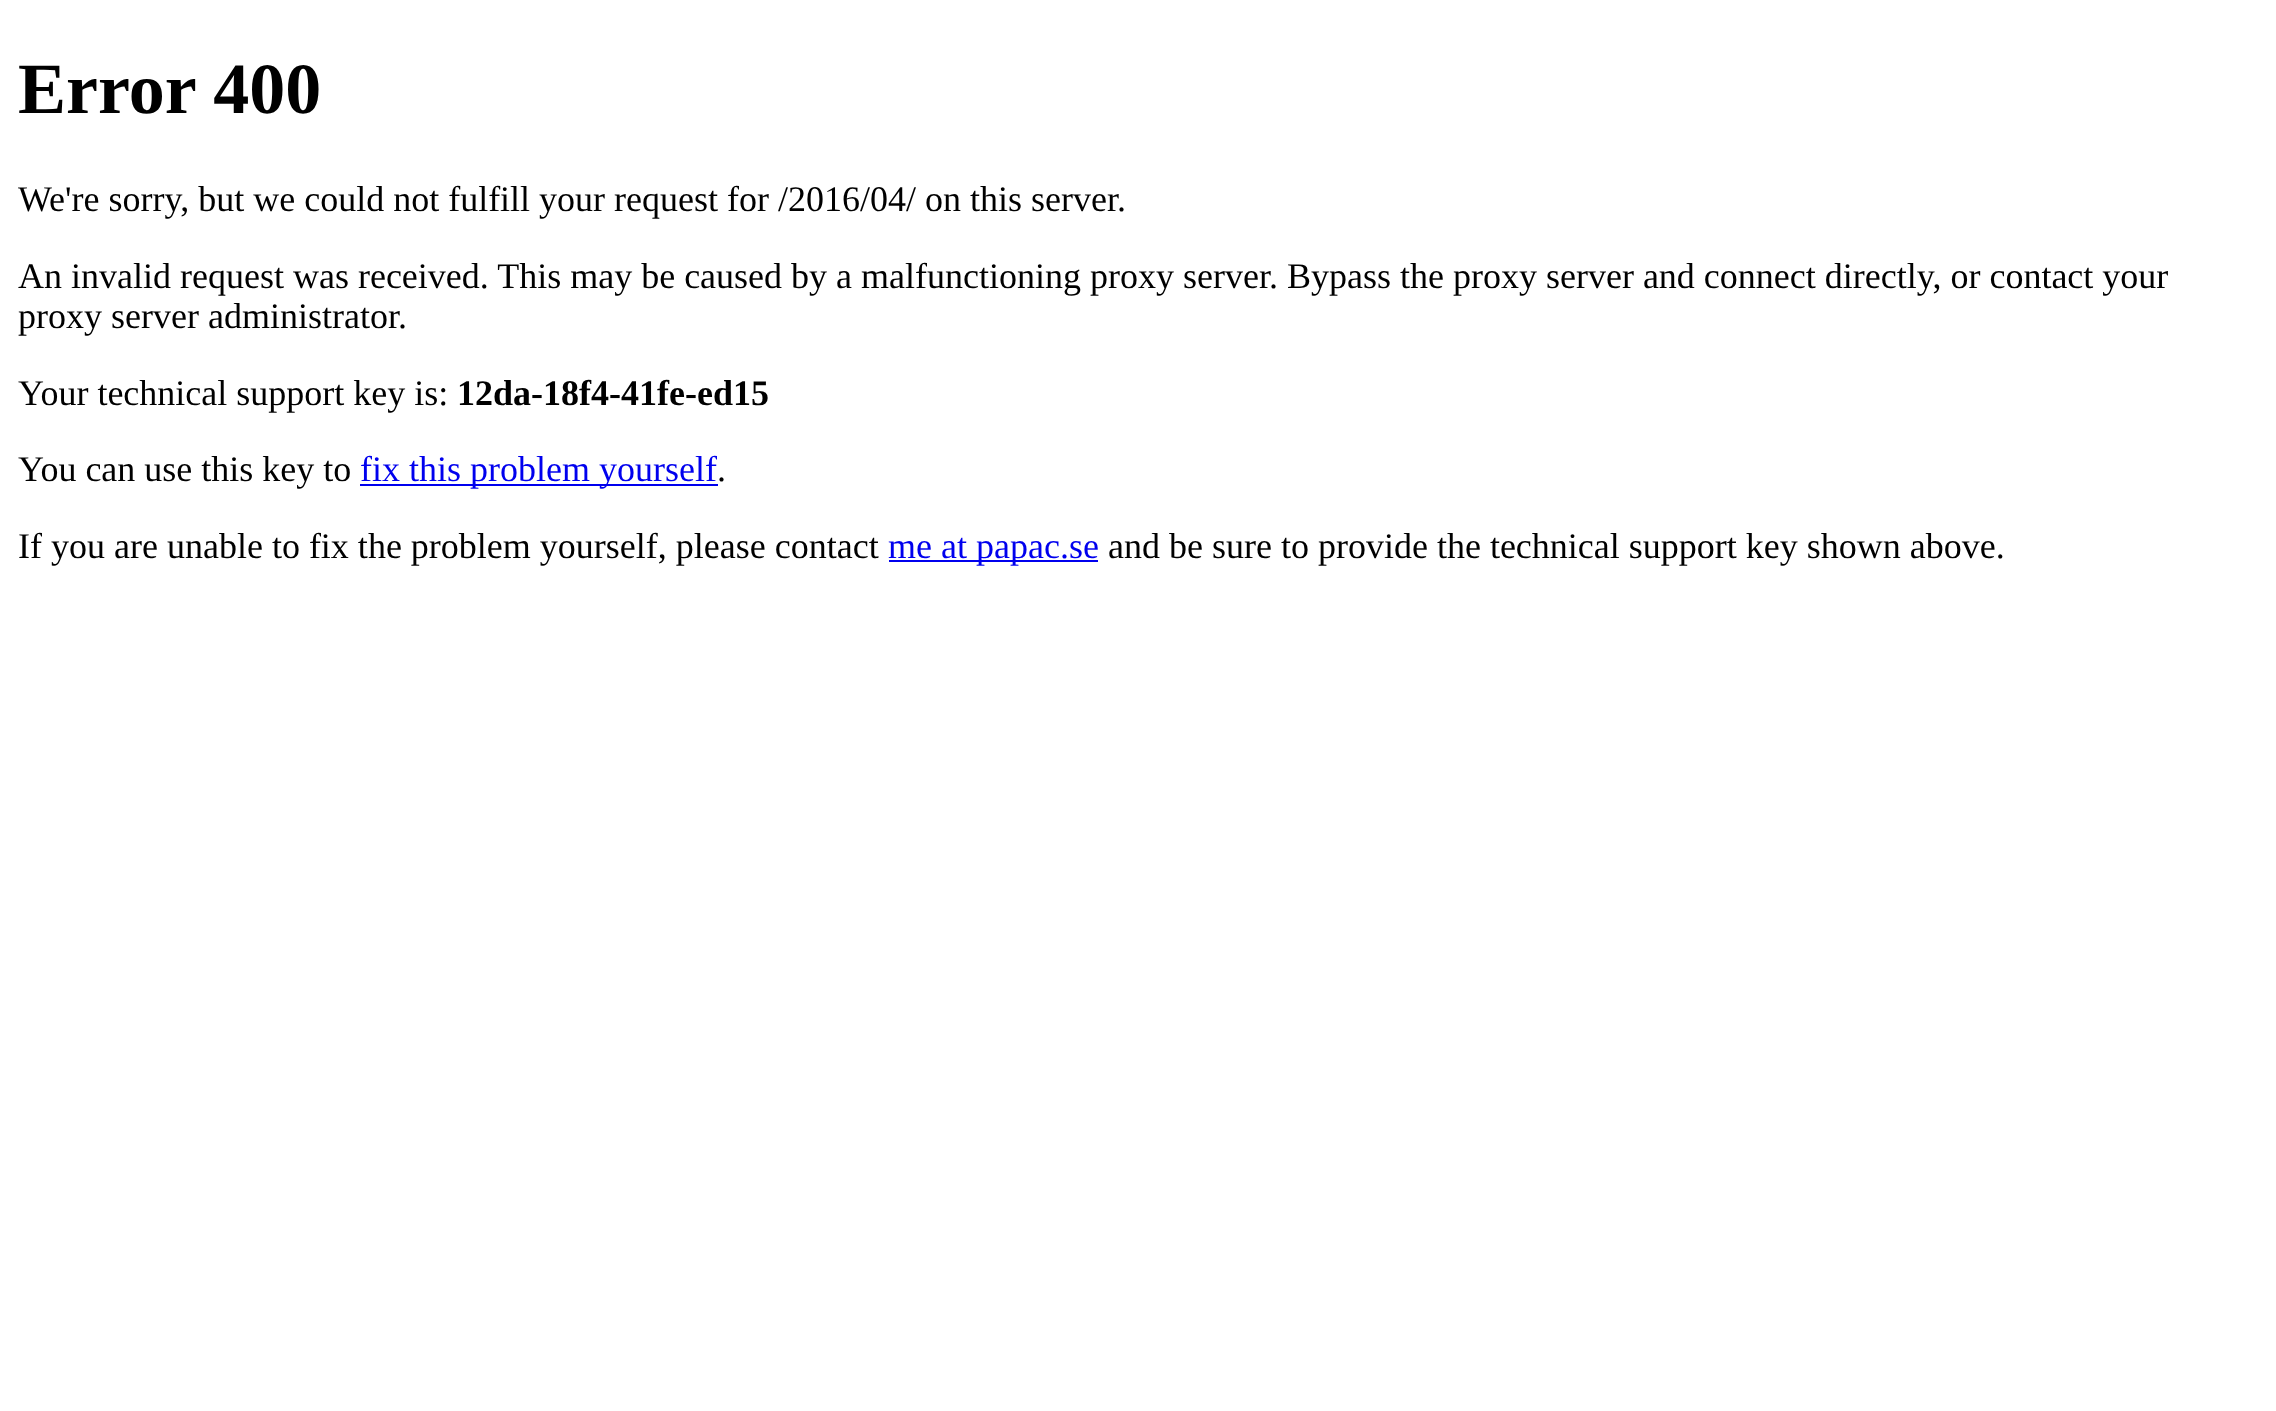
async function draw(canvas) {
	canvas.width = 2276;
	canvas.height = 1411;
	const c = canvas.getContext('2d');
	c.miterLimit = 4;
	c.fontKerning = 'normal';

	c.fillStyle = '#fff';
	c.fillRect(0, 0, 2276, 1411);
	c.font = 'bold 72px Liberation Serif';
	c.fillStyle = '#000';
	c.fillText('Error 400', 18, 113);
	c.font = '36px Liberation Serif';
	for (const [text, x, y] of [
		['We\'re sorry, but we could not fulfill your request for /2016/04/ on this server.', 18, 211],
		['An invalid request was received. This may be caused by a malfunctioning proxy server. Bypass the proxy server and connect directly, or contact your', 18, 288],
		['proxy server administrator.', 18, 328],
		['Your technical support key is:', 18, 405],
	]) {
		c.fillText(text, x, y);
	}
	c.font = 'bold 36px Liberation Serif';
	c.fillText('12da-18f4-41fe-ed15', 457, 405);
	c.font = '36px Liberation Serif';
	c.fillText('You can use this key to', 18, 481);
	c.fillStyle = '#00e';
	c.fillRect(360, 484, 358, 2);
	c.fillText('fix this problem yourself', 360, 481);
	c.fillStyle = '#000';
	c.fillText('.', 717, 481);
	c.fillText('If you are unable to fix the problem yourself, please contact', 18, 558);
	c.fillStyle = '#00e';
	c.fillRect(889, 560, 209, 2);
	c.fillText('me at papac.se', 888, 558);
	c.fillStyle = '#000';
	c.fillText('and be sure to provide the technical support key shown above.', 1108, 558);
}

draw(document.querySelector('canvas'));
